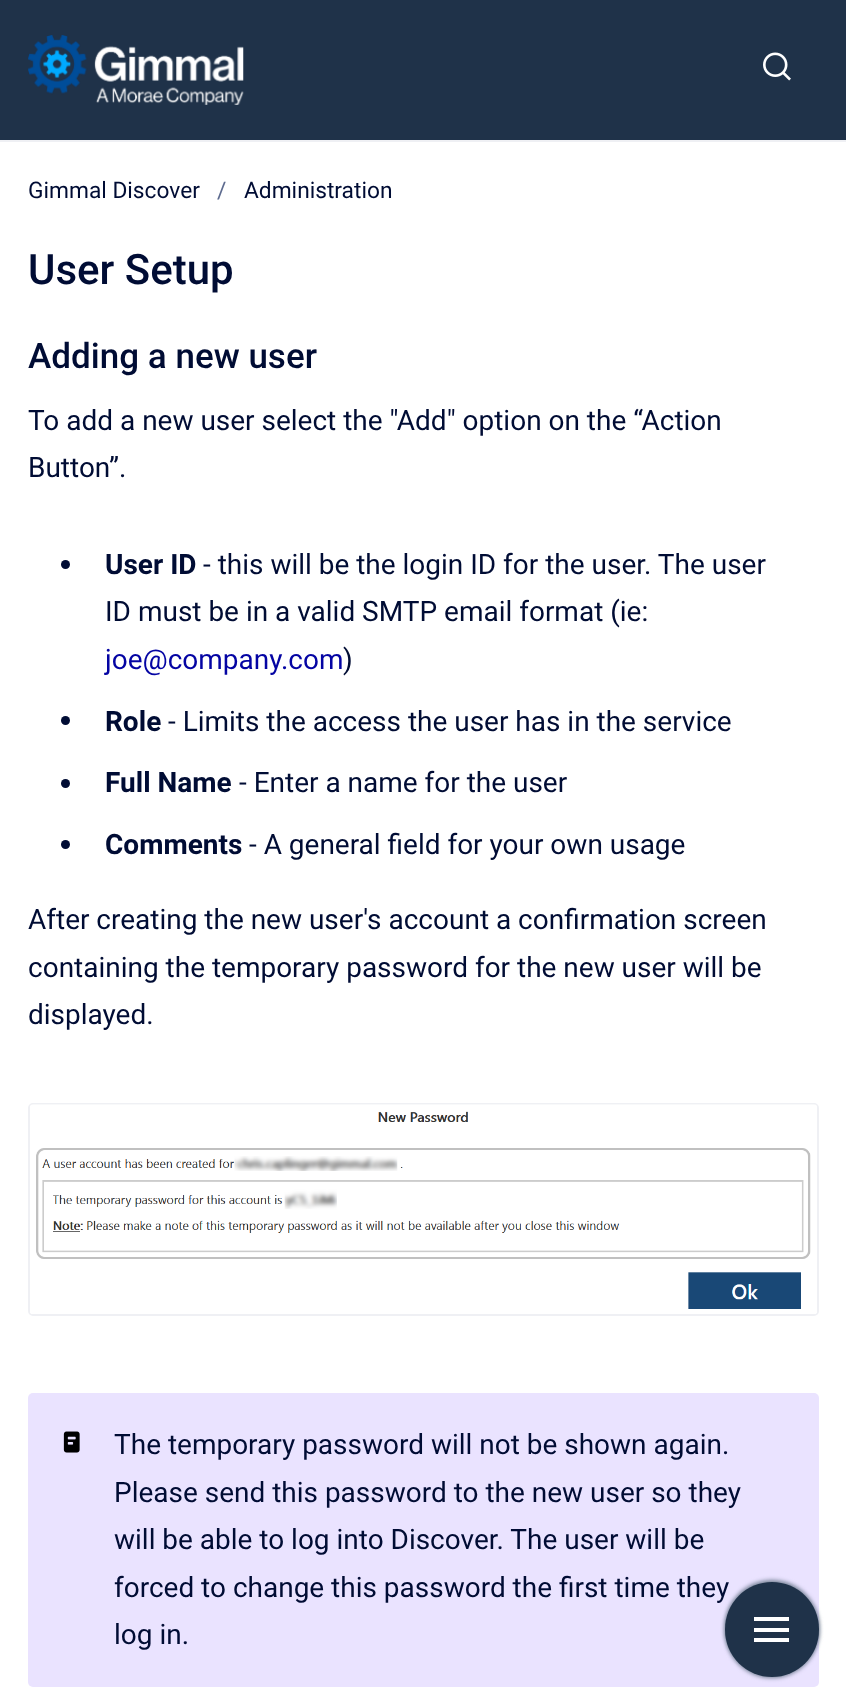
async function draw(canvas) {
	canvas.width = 846;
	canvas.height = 1703;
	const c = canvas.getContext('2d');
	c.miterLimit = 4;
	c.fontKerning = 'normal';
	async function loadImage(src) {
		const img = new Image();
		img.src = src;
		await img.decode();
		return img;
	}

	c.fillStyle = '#fff';
	c.fillRect(0, 0, 846, 1703);
	c.fillStyle = '#1f3249';
	c.fillRect(0, 0, 846, 140);
	c.fillStyle = '#eff0f4';
	c.fillRect(0, 140, 846, 2);
	c.drawImage(await loadImage('img1.png'), 28, 35, 216, 70);
	c.drawImage(await loadImage('img2.png'), 763, 52, 28, 29);
	c.font = '22.75px Roboto';
	c.fillStyle = '#000c34';
	c.fillText('Gimmal Discover', 28, 198);
	c.fillStyle = '#5d6b8f';
	c.fillText('/', 217, 198);
	c.fillStyle = '#000c34';
	c.fillText('Administration', 244, 198);
	c.font = '500 42px Roboto';
	c.fillText('User Setup', 28, 284);
	c.font = '500 35px Roboto';
	c.fillText('Adding a new user', 28, 368);
	c.font = '28px Roboto';
	c.fillText('To add a new user select the "Add" option on the “Action', 28, 430);
	c.fillText('Button”.', 28, 477);
	c.beginPath();
	c.arc(65.5, 564.5, 4.5, 0, 2 * Math.PI);
	c.fill();
	c.font = 'bold 28px Roboto';
	c.fillText('User ID', 105, 574);
	c.font = '28px Roboto';
	c.fillText('- this will be the login ID for the user. The user', 203, 574);
	c.fillText('ID must be in a valid SMTP email format (ie:', 105, 621);
	c.fillStyle = '#0404a3';
	c.fillText('joe@company.com', 105, 669);
	c.fillStyle = '#000c34';
	c.fillText(')', 343, 669);
	c.beginPath();
	c.arc(65.5, 720.5, 4.5, 0, 2 * Math.PI);
	c.fill();
	c.font = 'bold 28px Roboto';
	c.fillText('Role', 105, 731);
	c.font = '28px Roboto';
	c.fillText('- Limits the access the user has in the service', 168, 731);
	c.beginPath();
	c.arc(65.5, 783.5, 4.5, 0, 2 * Math.PI);
	c.fill();
	c.font = 'bold 28px Roboto';
	c.fillText('Full Name', 105, 792);
	c.font = '28px Roboto';
	c.fillText('- Enter a name for the user', 239, 792);
	c.beginPath();
	c.arc(65.5, 844.5, 4.5, 0, 2 * Math.PI);
	c.fill();
	c.font = 'bold 28px Roboto';
	c.fillText('Comments', 105, 854);
	c.font = '28px Roboto';
	for (const [text, x, y] of [
		['- A general field for your own usage', 249, 854],
		['After creating the new user\'s account a confirmation screen', 28, 929],
		['containing the temporary password for the new user will be', 28, 977],
		['displayed.', 28, 1024],
	]) {
		c.fillText(text, x, y);
	}
	c.beginPath();
	c.roundRect(29, 1104, 789, 211, 4);
	c.strokeStyle = '#eff0f4';
	c.lineWidth = 2;
	c.stroke();
	c.drawImage(await loadImage('img3.png'), 30, 1104, 787, 210);
	c.fillStyle = '#eae3ff';
	c.beginPath();
	c.roundRect(28, 1393, 791, 294, 5);
	c.fill();
	c.drawImage(await loadImage('img4.png'), 63, 1431, 17, 22);
	c.fillStyle = '#000c34';
	for (const [text, x, y] of [
		['The temporary password will not be shown again.', 114, 1454],
		['Please send this password to the new user so they', 114, 1502],
		['will be able to log into Discover. The user will be', 114, 1549],
		['forced to change this password the first time they', 114, 1597],
		['log in.', 114, 1644],
	]) {
		c.fillText(text, x, y);
	}
	c.fillStyle = '#7a869a';
	c.filter = 'blur(2px)';
	c.beginPath();
	c.roundRect(725, 1580, 94, 95, 47);
	c.fill();
	c.filter = 'none';
	c.filter = 'blur(2px)';
	c.beginPath();
	c.roundRect(725, 1584, 94, 94, 47);
	c.fill();
	c.filter = 'none';
	c.fillStyle = '#1f3249';
	c.beginPath();
	c.roundRect(725, 1582, 94, 95, 47);
	c.fill();
	for (const [x, y, w, h, color] of [
		[754, 1617, 35, 4, '#fff'],
		[754, 1628, 35, 4, '#fff'],
		[754, 1638, 35, 4, '#fff'],
	]) {
		c.fillStyle = color;
		c.fillRect(x, y, w, h);
	}
}

draw(document.querySelector('canvas'));
